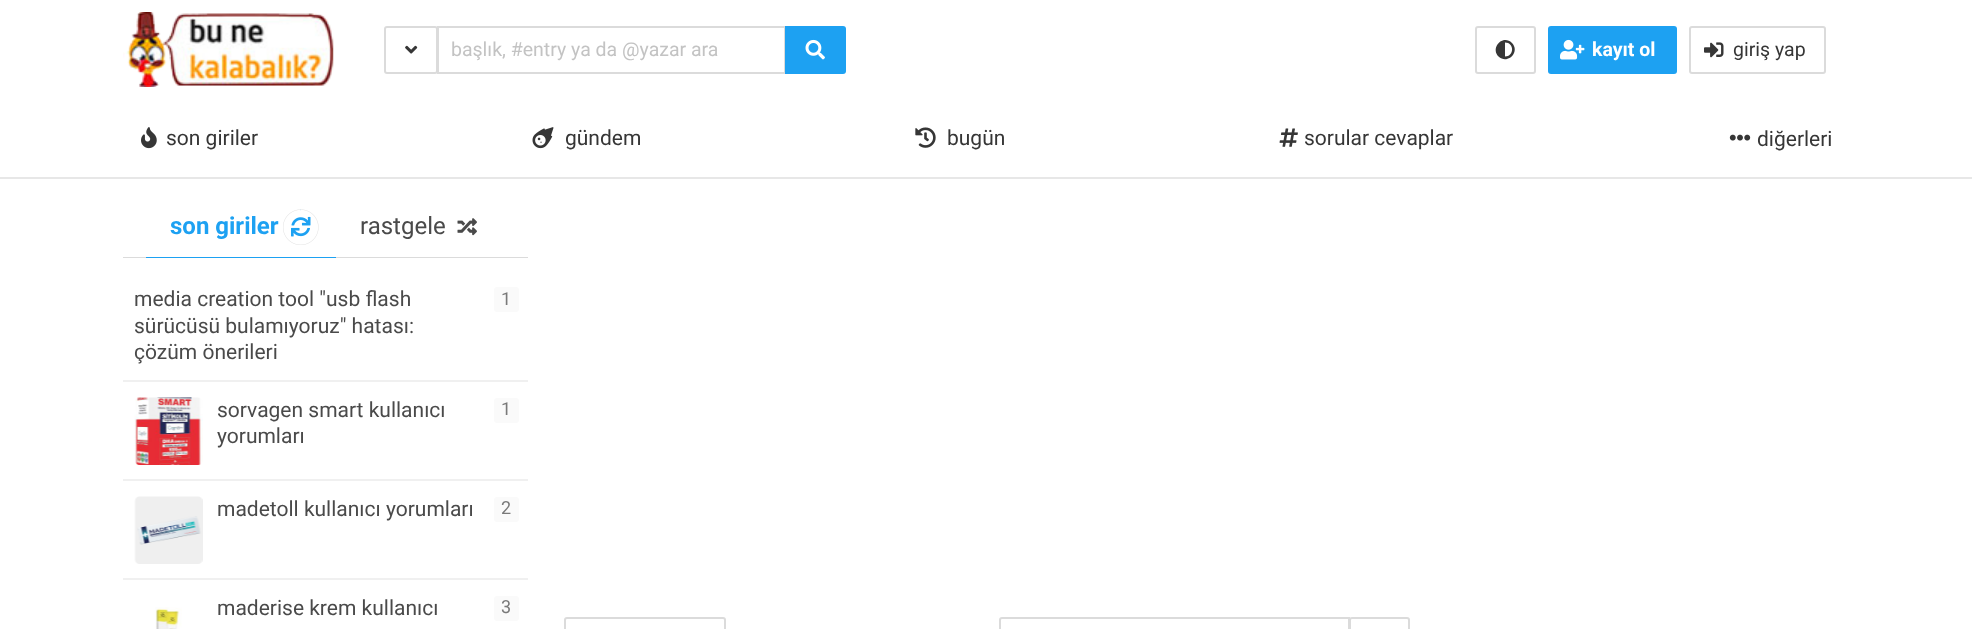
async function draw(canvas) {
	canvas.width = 1972;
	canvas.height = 629;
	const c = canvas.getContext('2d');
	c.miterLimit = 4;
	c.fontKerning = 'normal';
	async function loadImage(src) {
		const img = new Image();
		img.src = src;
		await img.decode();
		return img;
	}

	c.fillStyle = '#fff';
	c.fillRect(0, 0, 1972, 629);
	c.fillStyle = '#e7e7e7';
	c.fillRect(0, 177, 1972, 2);
	c.drawImage(await loadImage('img1.png'), 123, 12, 211, 75);
	c.beginPath();
	c.roundRect(385, 27, 52, 46, 2);
	c.strokeStyle = '#dbdbdb';
	c.lineWidth = 2;
	c.stroke();
	c.drawImage(await loadImage('img2.png'), 405, 45, 13, 9);
	c.strokeRect(438, 27, 347, 46);
	c.font = '19.5px Roboto';
	c.fillStyle = '#c3c3c3';
	c.fillText('başlık, #entry ya da @yazar ara', 451, 56);
	c.fillStyle = '#1da1f2';
	c.beginPath();
	c.roundRect(785, 26, 61, 48, [0, 3, 3, 0]);
	c.fill();
	c.drawImage(await loadImage('img3.png'), 805, 39, 20, 21);
	c.beginPath();
	c.roundRect(1476, 27, 59, 46, 2);
	c.stroke();
	c.fillStyle = '#363636';
	c.beginPath();
	c.moveTo(1498.5, 56.5);
	c.bezierCurveTo(1490, 47.5, 1503, 34, 1512, 43);
	c.bezierCurveTo(1520.5, 52, 1507.5, 65, 1498.5, 56.5);
	c.closePath();
	c.moveTo(1505, 56.5);
	c.bezierCurveTo(1514.5, 56.5, 1514.5, 42.5, 1505, 42.5);
	c.closePath();
	c.fill();
	c.fillStyle = '#1da1f2';
	c.beginPath();
	c.roundRect(1548, 26, 129, 48, 3);
	c.fill();
	c.drawImage(await loadImage('img4.png'), 1560, 39, 25, 21);
	c.font = 'bold 19.5px Roboto';
	c.fillStyle = '#fff';
	c.fillText('kayıt ol', 1592, 56);
	c.beginPath();
	c.roundRect(1690, 27, 135, 46, 2);
	c.stroke();
	c.drawImage(await loadImage('img5.png'), 1704, 42, 20, 16);
	c.font = '19.5px Roboto';
	c.fillStyle = '#363636';
	c.fillText('giriş yap', 1733, 56);
	c.drawImage(await loadImage('img6.png'), 141, 127, 16, 22);
	c.font = '21px Roboto';
	c.fillText('son giriler', 166, 145);
	c.drawImage(await loadImage('img7.png'), 532, 127, 22, 22);
	c.fillText('gündem', 565, 145);
	c.drawImage(await loadImage('img8.png'), 915, 127, 21, 21);
	c.fillText('bugün', 947, 145);
	c.drawImage(await loadImage('img9.png'), 1279, 128, 19, 19);
	c.fillText('sorular cevaplar', 1304, 145);
	c.drawImage(await loadImage('img10.png'), 1729, 134, 22, 7);
	c.fillText('diğerleri', 1757, 146);
	c.fillStyle = '#dbdbdb';
	c.fillRect(123, 257, 405, 1);
	c.fillStyle = '#1da1f2';
	c.fillRect(146, 257, 190, 1);
	c.font = 'bold 24px Roboto';
	c.fillText('son giriler', 170, 234);
	c.drawImage(await loadImage('img12.png'), 291, 216, 20, 21);
	c.drawImage(await loadImage('img11.png'), 283, 209, 36, 36);
	c.font = '24px Roboto';
	c.fillStyle = '#4a4a4a';
	c.fillText('rastgele', 360, 234);
	c.drawImage(await loadImage('img13.png'), 457, 218, 20, 18);
	c.font = '21px Roboto';
	c.fillText('media creation tool "usb flash', 134, 306);
	c.fillStyle = '#fafafa';
	c.beginPath();
	c.roundRect(494, 287, 25, 25, 3);
	c.fill();
	c.font = '18px Roboto';
	c.fillStyle = '#7a7a7a';
	c.fillText('1', 501, 305);
	c.font = '21px Roboto';
	c.fillStyle = '#4a4a4a';
	c.fillText('sürücüsü bulamıyoruz" hatası:', 134, 333);
	c.fillText('çözüm önerileri', 134, 359);
	c.fillStyle = '#f0f0f0';
	c.fillRect(123, 380, 405, 2);
	c.drawImage(await loadImage('img14.png'), 134, 397, 69, 68);
	c.fillStyle = '#4a4a4a';
	c.fillText('sorvagen smart kullanıcı', 217, 417);
	c.fillStyle = '#fafafa';
	c.beginPath();
	c.roundRect(494, 398, 25, 25, 3);
	c.fill();
	c.font = '18px Roboto';
	c.fillStyle = '#7a7a7a';
	c.fillText('1', 501, 415);
	c.font = '21px Roboto';
	c.fillStyle = '#4a4a4a';
	c.fillText('yorumları', 217, 443);
	c.fillStyle = '#f0f0f0';
	c.fillRect(123, 479, 405, 2);
	c.drawImage(await loadImage('img15.png'), 134, 496, 69, 68);
	c.fillStyle = '#4a4a4a';
	c.fillText('madetoll kullanıcı yorumları', 217, 516);
	c.fillStyle = '#fafafa';
	c.beginPath();
	c.roundRect(494, 497, 25, 25, 3);
	c.fill();
	c.font = '18px Roboto';
	c.fillStyle = '#7a7a7a';
	c.fillText('2', 501, 514);
	c.fillStyle = '#f0f0f0';
	c.fillRect(123, 578, 405, 2);
	c.drawImage(await loadImage('img16.png'), 155, 607, 27, 22);
	c.font = '21px Roboto';
	c.fillStyle = '#4a4a4a';
	c.fillText('maderise krem kullanıcı', 217, 615);
	c.fillStyle = '#fafafa';
	c.beginPath();
	c.roundRect(494, 596, 25, 25, 3);
	c.fill();
	c.font = '18px Roboto';
	c.fillStyle = '#7a7a7a';
	c.fillText('3', 501, 613);
	c.beginPath();
	c.roundRect(565, 618, 160, 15, 2);
	c.stroke();
	c.beginPath();
	c.moveTo(1002, 618);
	c.lineTo(1349, 618);
	c.lineTo(1349, 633);
	c.lineTo(1002, 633);
	c.bezierCurveTo(1001, 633, 1000, 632, 1000, 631);
	c.lineTo(1000, 620);
	c.bezierCurveTo(1000, 619, 1001, 618, 1002, 618);
	c.closePath();
	c.stroke();
	c.fillStyle = '#fff';
	c.beginPath();
	c.roundRect(1350, 618, 59, 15, 2);
	c.fill();
	c.stroke();
}

draw(document.querySelector('canvas'));
